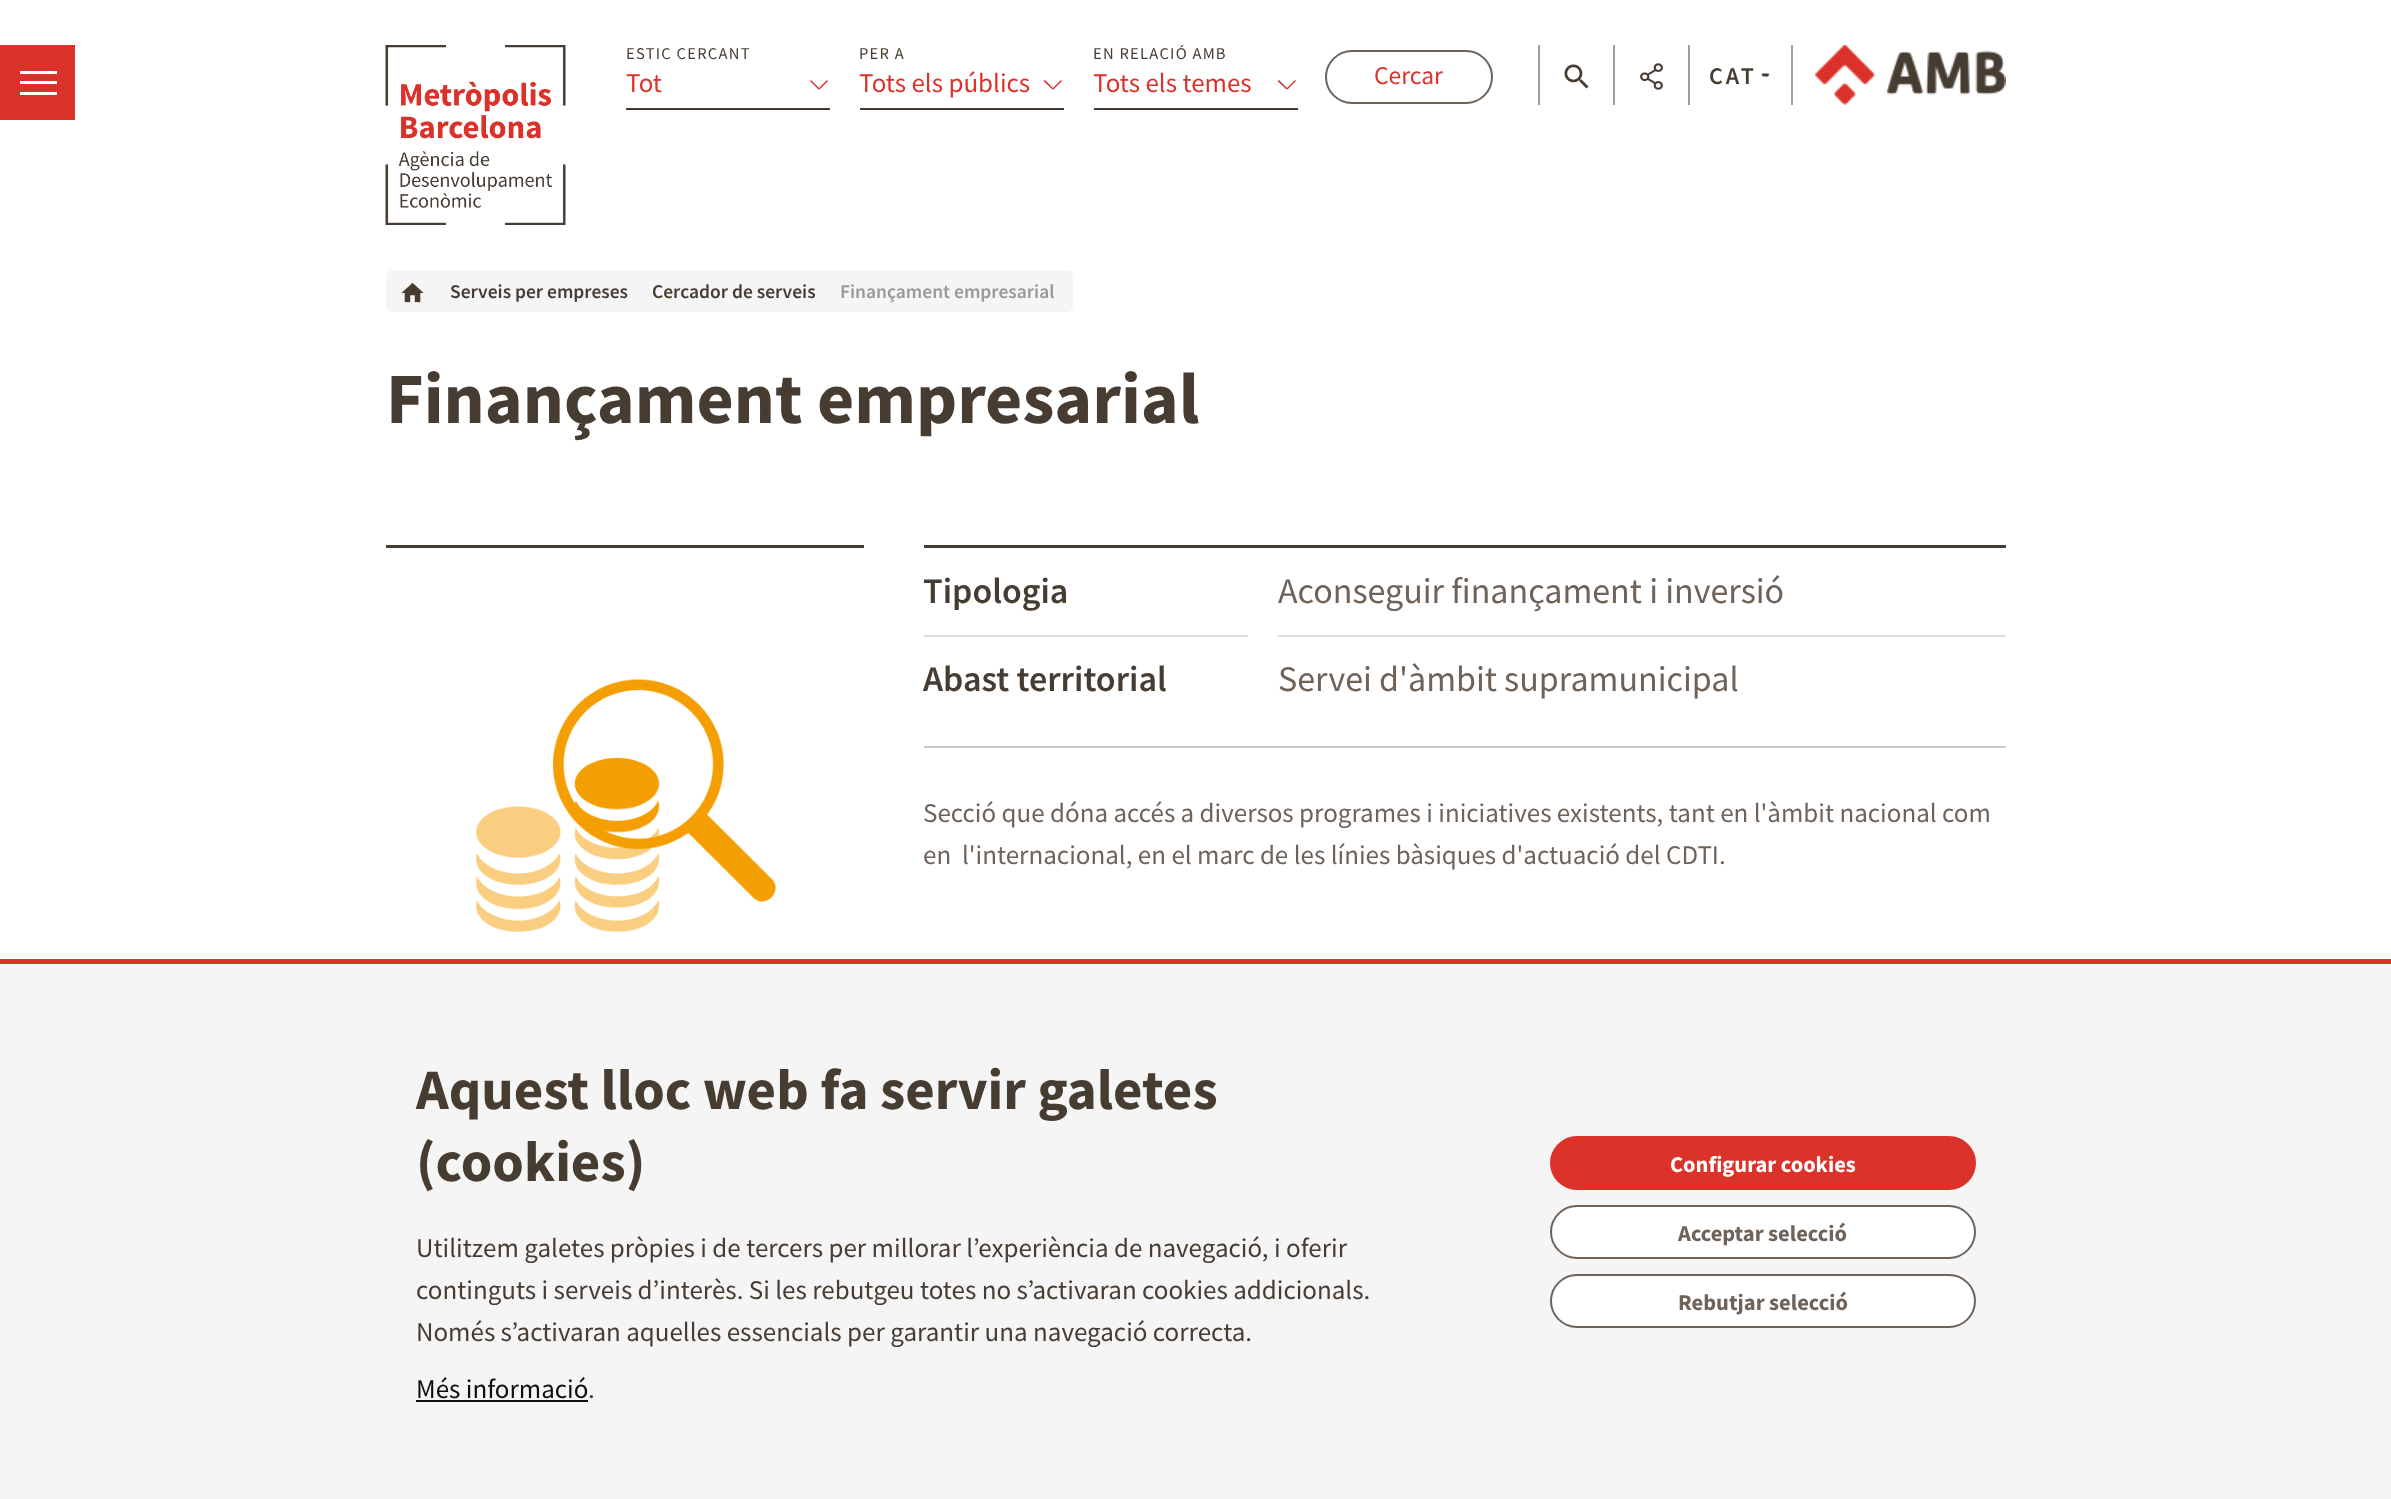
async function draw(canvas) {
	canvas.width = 2391;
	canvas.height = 1499;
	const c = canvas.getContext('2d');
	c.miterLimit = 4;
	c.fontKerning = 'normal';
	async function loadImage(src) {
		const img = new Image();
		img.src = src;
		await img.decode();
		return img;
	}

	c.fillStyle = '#fff';
	c.fillRect(0, 0, 2391, 1499);
	for (const [x, y, w, h, color] of [
		[0, 45, 75, 75, '#da322a'],
		[20, 81, 37, 3, '#fff'],
		[20, 71, 37, 3, '#fff'],
		[20, 92, 37, 3, '#fff'],
	]) {
		c.fillStyle = color;
		c.fillRect(x, y, w, h);
	}
	c.drawImage(await loadImage('img1.png'), 385, 45, 181, 180);
	c.letterSpacing = '1.25px';
	c.font = '16.5px Source Sans Pro';
	c.fillStyle = '#463c32';
	c.fillText('ESTIC CERCANT', 626, 59);
	c.fillRect(626, 108, 204, 2);
	c.letterSpacing = '0px';
	c.font = '27px Source Sans Pro';
	c.fillStyle = '#da322a';
	c.fillText('Tot', 626, 92);
	c.beginPath();
	c.moveTo(811, 80);
	c.lineTo(819.5, 88.5);
	c.lineTo(818.5, 89.5);
	c.lineTo(810, 81);
	c.closePath();
	c.fill();
	c.beginPath();
	c.moveTo(818.5, 88.5);
	c.lineTo(827, 80);
	c.lineTo(828, 81);
	c.lineTo(819.5, 89.5);
	c.closePath();
	c.fill();
	c.letterSpacing = '1.25px';
	c.font = '16.5px Source Sans Pro';
	c.fillStyle = '#463c32';
	c.fillText('PER A', 859, 59);
	c.fillRect(860, 108, 204, 2);
	c.letterSpacing = '0px';
	c.font = '27px Source Sans Pro';
	c.fillStyle = '#da322a';
	c.fillText('Tots els públics', 859, 92);
	c.beginPath();
	c.moveTo(1045, 80);
	c.lineTo(1053.5, 88.5);
	c.lineTo(1052.5, 89.5);
	c.lineTo(1043.5, 81);
	c.closePath();
	c.fill();
	c.beginPath();
	c.moveTo(1052.5, 88.5);
	c.lineTo(1061, 80);
	c.lineTo(1062, 81);
	c.lineTo(1053.5, 89.5);
	c.closePath();
	c.fill();
	c.letterSpacing = '1.25px';
	c.font = '16.5px Source Sans Pro';
	c.fillStyle = '#463c32';
	c.fillText('EN RELACIÓ AMB', 1093, 59);
	c.fillRect(1094, 108, 204, 2);
	c.letterSpacing = '0px';
	c.font = '27px Source Sans Pro';
	c.fillStyle = '#da322a';
	c.fillText('Tots els temes', 1093, 92);
	c.beginPath();
	c.moveTo(1279, 80);
	c.lineTo(1287.5, 88.5);
	c.lineTo(1286.5, 89.5);
	c.lineTo(1277.5, 81);
	c.closePath();
	c.fill();
	c.beginPath();
	c.moveTo(1286.5, 88.5);
	c.lineTo(1295, 80);
	c.lineTo(1296, 81);
	c.lineTo(1287.5, 89.5);
	c.closePath();
	c.fill();
	c.beginPath();
	c.roundRect(1326, 51, 166, 52, 26);
	c.strokeStyle = '#6e6259';
	c.lineWidth = 2;
	c.stroke();
	c.font = '25.5px Source Sans Pro';
	c.fillText('Cercar', 1374, 84);
	c.fillStyle = '#a39e99';
	c.fillRect(1538, 45, 2, 60);
	c.drawImage(await loadImage('img2.png'), 1564, 64, 25, 25);
	c.fillRect(1613, 45, 2, 60);
	c.drawImage(await loadImage('img3.png'), 1640, 63, 23, 27);
	c.fillRect(1791, 45, 2, 60);
	c.fillRect(1688, 45, 2, 60);
	c.letterSpacing = '3px';
	c.font = '600 24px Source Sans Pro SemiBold';
	c.fillStyle = '#463c32';
	c.fillText('CAT', 1709, 84);
	c.beginPath();
	c.moveTo(1762.5, 73.5);
	c.lineTo(1761.5, 74);
	c.lineTo(1763, 76.5);
	c.lineTo(1768, 76.5);
	c.lineTo(1769.5, 74);
	c.lineTo(1767.5, 73.5);
	c.closePath();
	c.fill();
	c.drawImage(await loadImage('img4.png'), 1815, 45, 191, 60);
	c.fillStyle = '#f5f5f5';
	c.beginPath();
	c.roundRect(386, 270, 58, 42, 6);
	c.fill();
	c.drawImage(await loadImage('img5.png'), 401, 282, 23, 21);
	c.beginPath();
	c.roundRect(437, 270, 210, 42, 6);
	c.fill();
	c.letterSpacing = '0px';
	c.font = '600 19.5px Source Sans Pro SemiBold';
	c.fillStyle = '#463c32';
	c.fillText('Serveis per empreses', 450, 298);
	c.fillStyle = '#f5f5f5';
	c.beginPath();
	c.roundRect(639, 270, 195, 42, 6);
	c.fill();
	c.fillStyle = '#463c32';
	c.fillText('Cercador de serveis', 652, 298);
	c.fillStyle = '#f5f5f5';
	c.beginPath();
	c.roundRect(827, 270, 246, 42, 6);
	c.fill();
	c.fillStyle = '#999';
	c.fillText('Finançament empresarial', 840, 298);
	c.font = 'bold 72px Source Sans Pro';
	c.fillStyle = '#463c32';
	c.fillText('Finançament empresarial', 386, 423);
	c.fillRect(386, 545, 478, 3);
	c.drawImage(await loadImage('img6.png'), 475, 678, 302, 255);
	c.fillRect(924, 545, 1082, 3);
	c.font = '600 36px Source Sans Pro SemiBold';
	c.fillText('Tipologia', 923, 603);
	c.font = '36px Source Sans Pro';
	c.fillStyle = '#6e6259';
	c.fillText('Aconseguir finançament i inversió', 1278, 603);
	c.fillStyle = '#ddd';
	c.fillRect(924, 635, 324, 2);
	c.font = '600 36px Source Sans Pro SemiBold';
	c.fillStyle = '#463c32';
	c.fillText('Abast territorial', 923, 691);
	c.fillStyle = '#ddd';
	c.fillRect(1278, 635, 728, 2);
	c.font = '36px Source Sans Pro';
	c.fillStyle = '#6e6259';
	c.fillText('Servei d\'àmbit supramunicipal', 1278, 691);
	c.fillStyle = '#ccc';
	c.fillRect(924, 746, 1082, 2);
	c.font = '27px Source Sans Pro';
	c.fillStyle = '#6e6259';
	c.fillText('Secció que dóna accés a diversos programes i iniciatives existents, tant en l\'àmbit nacional com', 923, 822);
	c.fillText('en  l\'internacional, en el marc de les línies bàsiques d\'actuació del CDTI.', 923, 864);
	c.fillStyle = '#f5f5f5';
	c.fillRect(0, 964, 2391, 535);
	c.fillStyle = '#db322a';
	c.fillRect(0, 959, 2391, 5);
	c.font = 'bold 57px Source Sans Pro';
	c.fillStyle = '#463c32';
	c.fillText('Aquest lloc web fa servir galetes', 416, 1109);
	c.fillText('(cookies)', 416, 1181);
	c.font = '27px Source Sans Pro';
	for (const [text, x, y] of [
		['Utilitzem galetes pròpies i de tercers per millorar l’experiència de navegació, i oferir', 416, 1257],
		['continguts i serveis d’interès. Si les rebutgeu totes no s’activaran cookies addicionals.', 416, 1299],
		['Només s’activaran aquelles essencials per garantir una navegació correcta.', 416, 1341],
	]) {
		c.fillText(text, x, y);
	}
	c.fillStyle = '#0e0e0e';
	c.fillText('Més informació', 416, 1398);
	c.fillRect(416, 1400, 172, 2);
	c.fillStyle = '#463c32';
	c.fillText('.', 588, 1398);
	c.fillStyle = '#db322a';
	c.beginPath();
	c.roundRect(1551, 1137, 424, 52, 26);
	c.fill();
	c.strokeStyle = '#db322a';
	c.stroke();
	c.font = 'bold 22.5px Source Sans Pro';
	c.fillStyle = '#fff';
	c.fillText('Configurar cookies', 1670, 1172);
	c.beginPath();
	c.roundRect(1551, 1206, 424, 52, 26);
	c.fill();
	c.strokeStyle = '#6e6259';
	c.stroke();
	c.fillStyle = '#6e6259';
	c.fillText('Acceptar selecció', 1678, 1241);
	c.fillStyle = '#fff';
	c.beginPath();
	c.roundRect(1551, 1275, 424, 52, 26);
	c.fill();
	c.stroke();
	c.fillStyle = '#6e6259';
	c.fillText('Rebutjar selecció', 1678, 1310);
}

draw(document.querySelector('canvas'));
